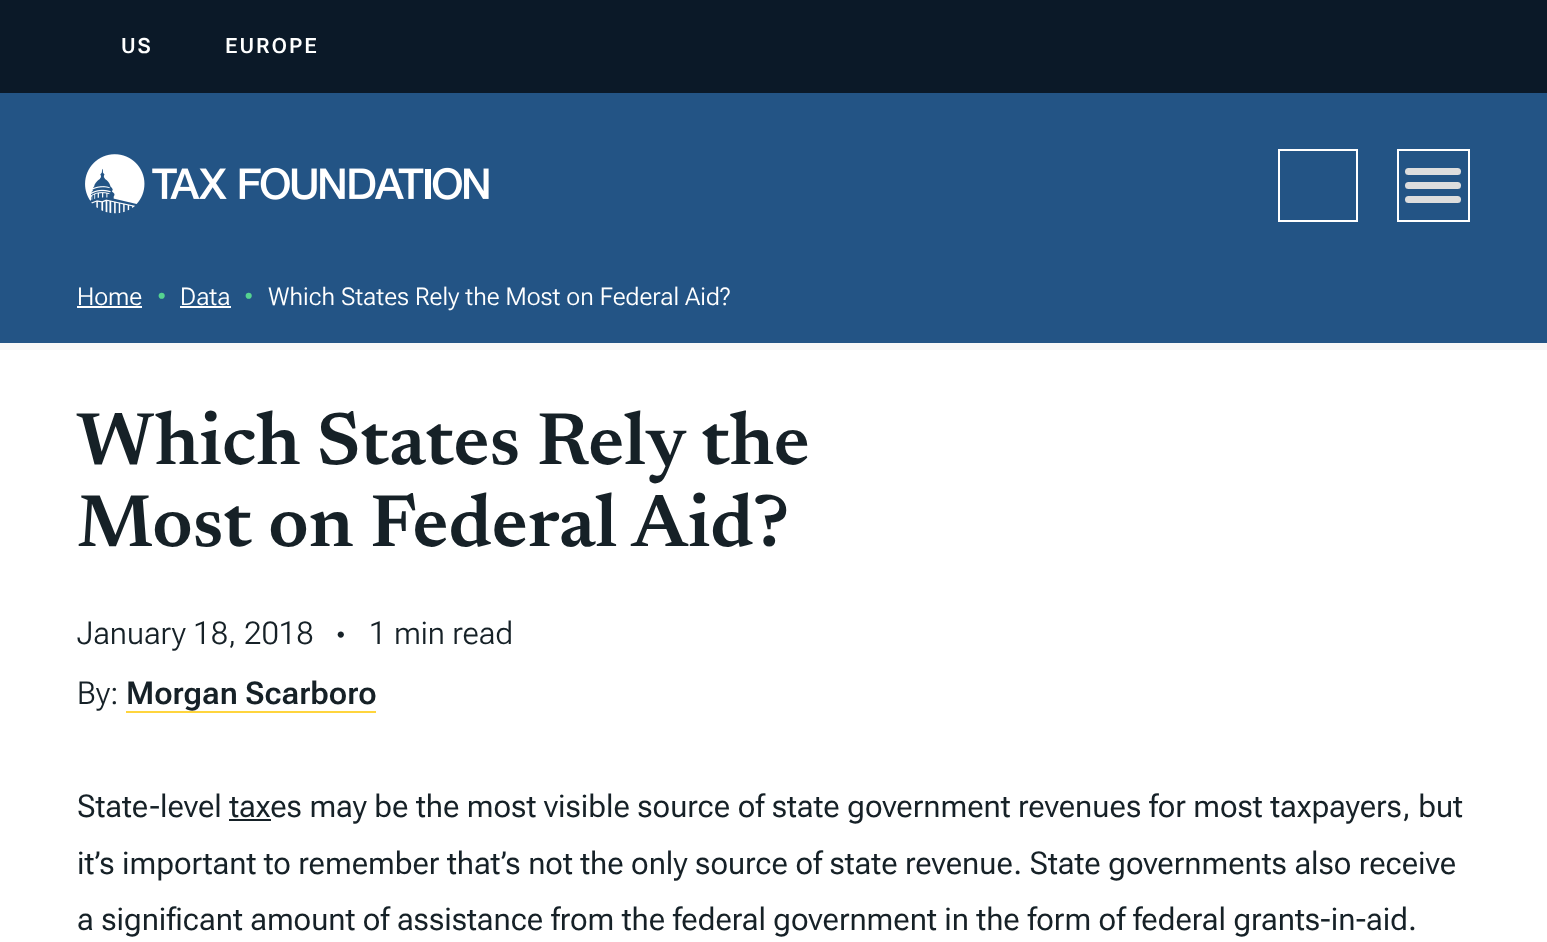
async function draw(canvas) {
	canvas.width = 1547;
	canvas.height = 942;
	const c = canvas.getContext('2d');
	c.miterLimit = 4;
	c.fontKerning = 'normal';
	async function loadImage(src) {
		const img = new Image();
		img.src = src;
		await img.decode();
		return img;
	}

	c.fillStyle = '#fff';
	c.fillRect(0, 0, 1547, 942);
	c.fillStyle = '#235485';
	c.fillRect(0, 93, 1547, 250);
	c.fillStyle = '#0b1928';
	c.fillRect(0, 0, 1547, 93);
	c.letterSpacing = '2px';
	c.font = '600 21px Roboto Flex';
	c.fillStyle = '#fff';
	c.fillText('US', 121, 53);
	c.fillText('EUROPE', 225, 53);
	c.drawImage(await loadImage('img1.png'), 85, 154, 404, 60);
	c.strokeStyle = '#fff';
	c.lineWidth = 2;
	c.strokeRect(1279, 150, 78, 71);
	c.strokeRect(1398, 150, 71, 71);
	c.fillStyle = '#ddd';
	c.beginPath();
	c.roundRect(1405, 168, 56, 7, 3.5);
	c.fill();
	c.beginPath();
	c.roundRect(1405, 182, 56, 7, 3.5);
	c.fill();
	c.beginPath();
	c.roundRect(1405, 196, 56, 7, 3.5);
	c.fill();
	c.letterSpacing = '0px';
	c.font = '300 24.5px "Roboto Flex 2"';
	c.fillStyle = '#fff';
	c.fillText('Home', 77, 305);
	c.fillRect(77, 306, 65, 2);
	c.fillStyle = '#55d390';
	c.fillText('•', 157, 305);
	c.fillStyle = '#fff';
	c.fillText('Data', 180, 305);
	c.fillRect(180, 306, 51, 2);
	c.fillStyle = '#55d390';
	c.fillText('•', 244, 305);
	c.fillStyle = '#fff';
	c.fillText('Which States Rely the Most on Federal Aid?', 268, 305);
	c.fillStyle = '#f7f7f7';
	c.fillRect(0, 343, 1547, 7);
	c.font = '600 74.75px Newsreader';
	c.fillStyle = '#162127';
	c.fillText('Which States Rely the', 77, 464);
	c.fillText('Most on Federal Aid?', 77, 546);
	c.font = '300 31.5px Roboto Flex';
	c.fillText('January 18, 2018', 77, 644);
	c.font = '300 25px "Roboto Flex 2"';
	c.fillText('•', 336, 644);
	c.font = '300 31.5px Roboto Flex';
	c.fillText('1 min read', 369, 644);
	c.fillText('By:', 77, 704);
	c.font = '600 31.5px "Roboto Flex 2"';
	c.fillText('Morgan Scarboro', 126, 704);
	c.fillStyle = '#ffd53d';
	c.fillRect(126, 711, 250, 2);
	c.font = '31.5px Roboto Flex';
	c.fillStyle = '#162127';
	c.fillText('State-level taxes may be the most visible source of state government revenues for most taxpayers, but', 77, 817);
	c.fillRect(229, 819, 42, 2);
	c.fillText('it’s important to remember that’s not the only source of state revenue. State governments also receive', 77, 874);
	c.fillText('a significant amount of assistance from the federal government in the form of federal grants-in-aid.', 77, 930);
}

draw(document.querySelector('canvas'));
